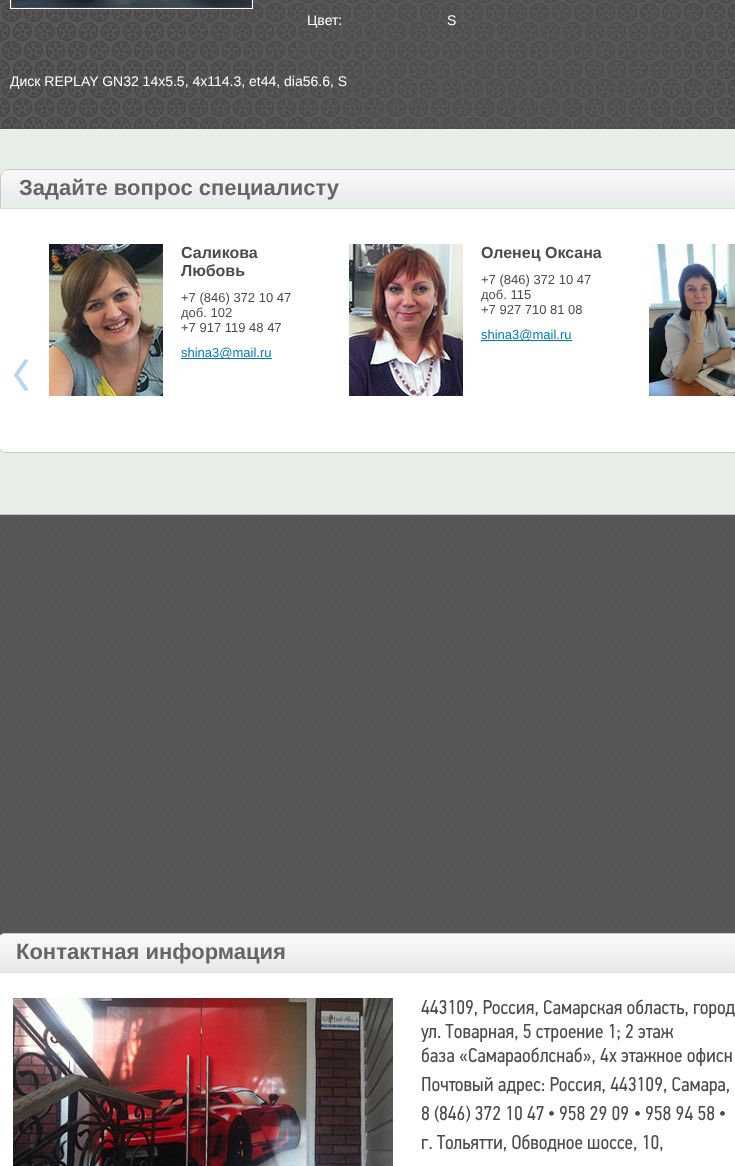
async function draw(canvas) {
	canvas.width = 735;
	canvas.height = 1166;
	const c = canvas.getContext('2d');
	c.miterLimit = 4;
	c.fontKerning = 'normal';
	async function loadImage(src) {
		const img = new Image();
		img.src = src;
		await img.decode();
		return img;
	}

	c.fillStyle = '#fff';
	c.fillRect(0, 0, 735, 1166);
	c.drawImage(await loadImage('img1.png'), 0, 0, 735, 935);
	c.drawImage(await loadImage('img2.png'), 0, 0, 735, 129);
	c.drawImage(await loadImage('img3.png'), 10, 0, 243, 9);
	c.font = '14px Liberation Sans';
	for (const [text, x, y] of [
		['Цвет:', 307, 25],
		['S', 447, 25],
		['Диск REPLAY GN32 14х5.5, 4х114.3, et44, dia56.6, S', 10, 86],
	]) {
		c.fillText(text, x, y);
	}
	c.fillStyle = '#e8eee8';
	c.fillRect(0, 129, 735, 385);
	c.fillStyle = '#bec3bd';
	c.fillRect(0, 514, 735, 1);
	c.drawImage(await loadImage('img4.png'), 0, 170, 735, 30);
	c.fillStyle = '#ccc8c8';
	c.beginPath();
	c.moveTo(8, 169);
	c.bezierCurveTo(6, 169, 4, 170, 2, 172);
	c.lineTo(3, 172);
	c.bezierCurveTo(4, 171, 6, 170, 8, 170);
	c.lineTo(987, 170);
	c.bezierCurveTo(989, 170, 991, 171, 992, 172);
	c.bezierCurveTo(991, 170, 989, 169, 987, 169);
	c.closePath();
	c.fill();
	c.fillStyle = '#dedede';
	c.beginPath();
	c.moveTo(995, 209);
	c.lineTo(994, 208);
	c.lineTo(1, 208);
	c.lineTo(0, 209);
	c.closePath();
	c.fill();
	c.fillStyle = '#ccc8c8';
	c.beginPath();
	c.moveTo(0, 209);
	c.lineTo(1, 208);
	c.lineTo(1, 177);
	c.bezierCurveTo(1, 175, 2, 173, 3, 172);
	c.lineTo(2.5, 171.5);
	c.bezierCurveTo(1, 173, 0, 175, 0, 177);
	c.closePath();
	c.fill();
	c.font = 'bold 22px Liberation Sans';
	c.fillStyle = '#666';
	c.fillText('Задайте вопрос специалисту', 19, 195);
	c.fillStyle = '#fff';
	c.beginPath();
	c.moveTo(-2, 209);
	c.lineTo(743, 209);
	c.lineTo(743, 445);
	c.bezierCurveTo(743, 449.5, 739.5, 453, 735, 453);
	c.lineTo(6, 453);
	c.bezierCurveTo(1.5, 453, -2, 449.5, -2, 445);
	c.closePath();
	c.fill();
	c.fillStyle = '#ccc8c8';
	c.beginPath();
	c.moveTo(-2, 209);
	c.lineTo(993, 209);
	c.lineTo(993, 445);
	c.bezierCurveTo(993, 449, 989, 453, 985, 453);
	c.lineTo(6, 453);
	c.bezierCurveTo(2, 453, -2, 449, -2, 445);
	c.closePath();
	c.moveTo(-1, 209);
	c.lineTo(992, 209);
	c.lineTo(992, 445);
	c.bezierCurveTo(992, 449, 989, 452, 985, 452);
	c.lineTo(6, 452);
	c.bezierCurveTo(2, 452, -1, 449, -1, 445);
	c.closePath();
	c.fill('evenodd');
	c.drawImage(await loadImage('img5.png'), 49, 244, 114, 152);
	c.font = 'bold 16px Liberation Sans';
	c.fillStyle = '#4c4c4c';
	c.fillText('Саликова', 181, 258);
	c.fillText('Любовь', 181, 276);
	c.font = '13px Liberation Sans';
	for (const [text, x, y] of [
		['+7 (846) 372 10 47', 181, 302],
		['доб. 102', 181, 317],
		['+7 917 119 48 47', 181, 332],
	]) {
		c.fillText(text, x, y);
	}
	c.fillStyle = '#007ab9';
	c.fillRect(181, 358, 91, 1);
	c.fillText('shina3@mail.ru', 181, 357);
	c.drawImage(await loadImage('img6.png'), 349, 244, 114, 152);
	c.font = 'bold 16px Liberation Sans';
	c.fillStyle = '#4c4c4c';
	c.fillText('Оленец Оксана', 481, 258);
	c.font = '13px Liberation Sans';
	for (const [text, x, y] of [
		['+7 (846) 372 10 47', 481, 284],
		['доб. 115', 481, 299],
		['+7 927 710 81 08', 481, 314],
	]) {
		c.fillText(text, x, y);
	}
	c.fillStyle = '#007ab9';
	c.fillRect(481, 340, 91, 1);
	c.fillText('shina3@mail.ru', 481, 339);
	c.drawImage(await loadImage('img7.png'), 649, 244, 86, 152);
	c.drawImage(await loadImage('img8.png'), 14, 359, 14, 32);
	c.fillStyle = '#fff';
	c.beginPath();
	c.roundRect(-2.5, 933.5, 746, 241, 7.5);
	c.fill();
	c.strokeStyle = '#ccc8c8';
	c.stroke();
	c.drawImage(await loadImage('img9.png'), 0, 934, 735, 38);
	c.fillStyle = '#dedede';
	c.fillRect(0, 972, 735, 1);
	c.font = 'bold 22px Liberation Sans';
	c.fillStyle = '#666';
	c.fillText('Контактная информация', 16, 959);
	c.drawImage(await loadImage('img10.png'), 13, 998, 380, 168);
	c.font = '20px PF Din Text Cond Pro';
	c.fillStyle = '#4c4c4c';
	for (const [text, x, y] of [
		['443109, Россия, Самарская область, город', 421, 1014],
		['ул. Товарная, 5 строение 1; 2 этаж', 421, 1038],
		['база «Самараоблснаб», 4х этажное офисн', 421, 1062],
		['Почтовый адрес: Россия, 443109, Самара,', 421, 1091],
		['8 (846) 372 10 47', 421, 1120],
	]) {
		c.fillText(text, x, y);
	}
	c.font = '20px Liberation Serif';
	c.fillText('•', 548, 1120);
	c.font = '20px PF Din Text Cond Pro';
	c.fillText('958 29 09', 559, 1120);
	c.font = '20px Liberation Serif';
	c.fillText('•', 634, 1120);
	c.font = '20px PF Din Text Cond Pro';
	c.fillText('958 94 58', 645, 1120);
	c.font = '20px Liberation Serif';
	c.fillText('•', 719, 1120);
	c.font = '20px PF Din Text Cond Pro';
	c.fillText('г. Тольятти, Обводное шоссе, 10,', 421, 1149);
}

draw(document.querySelector('canvas'));
